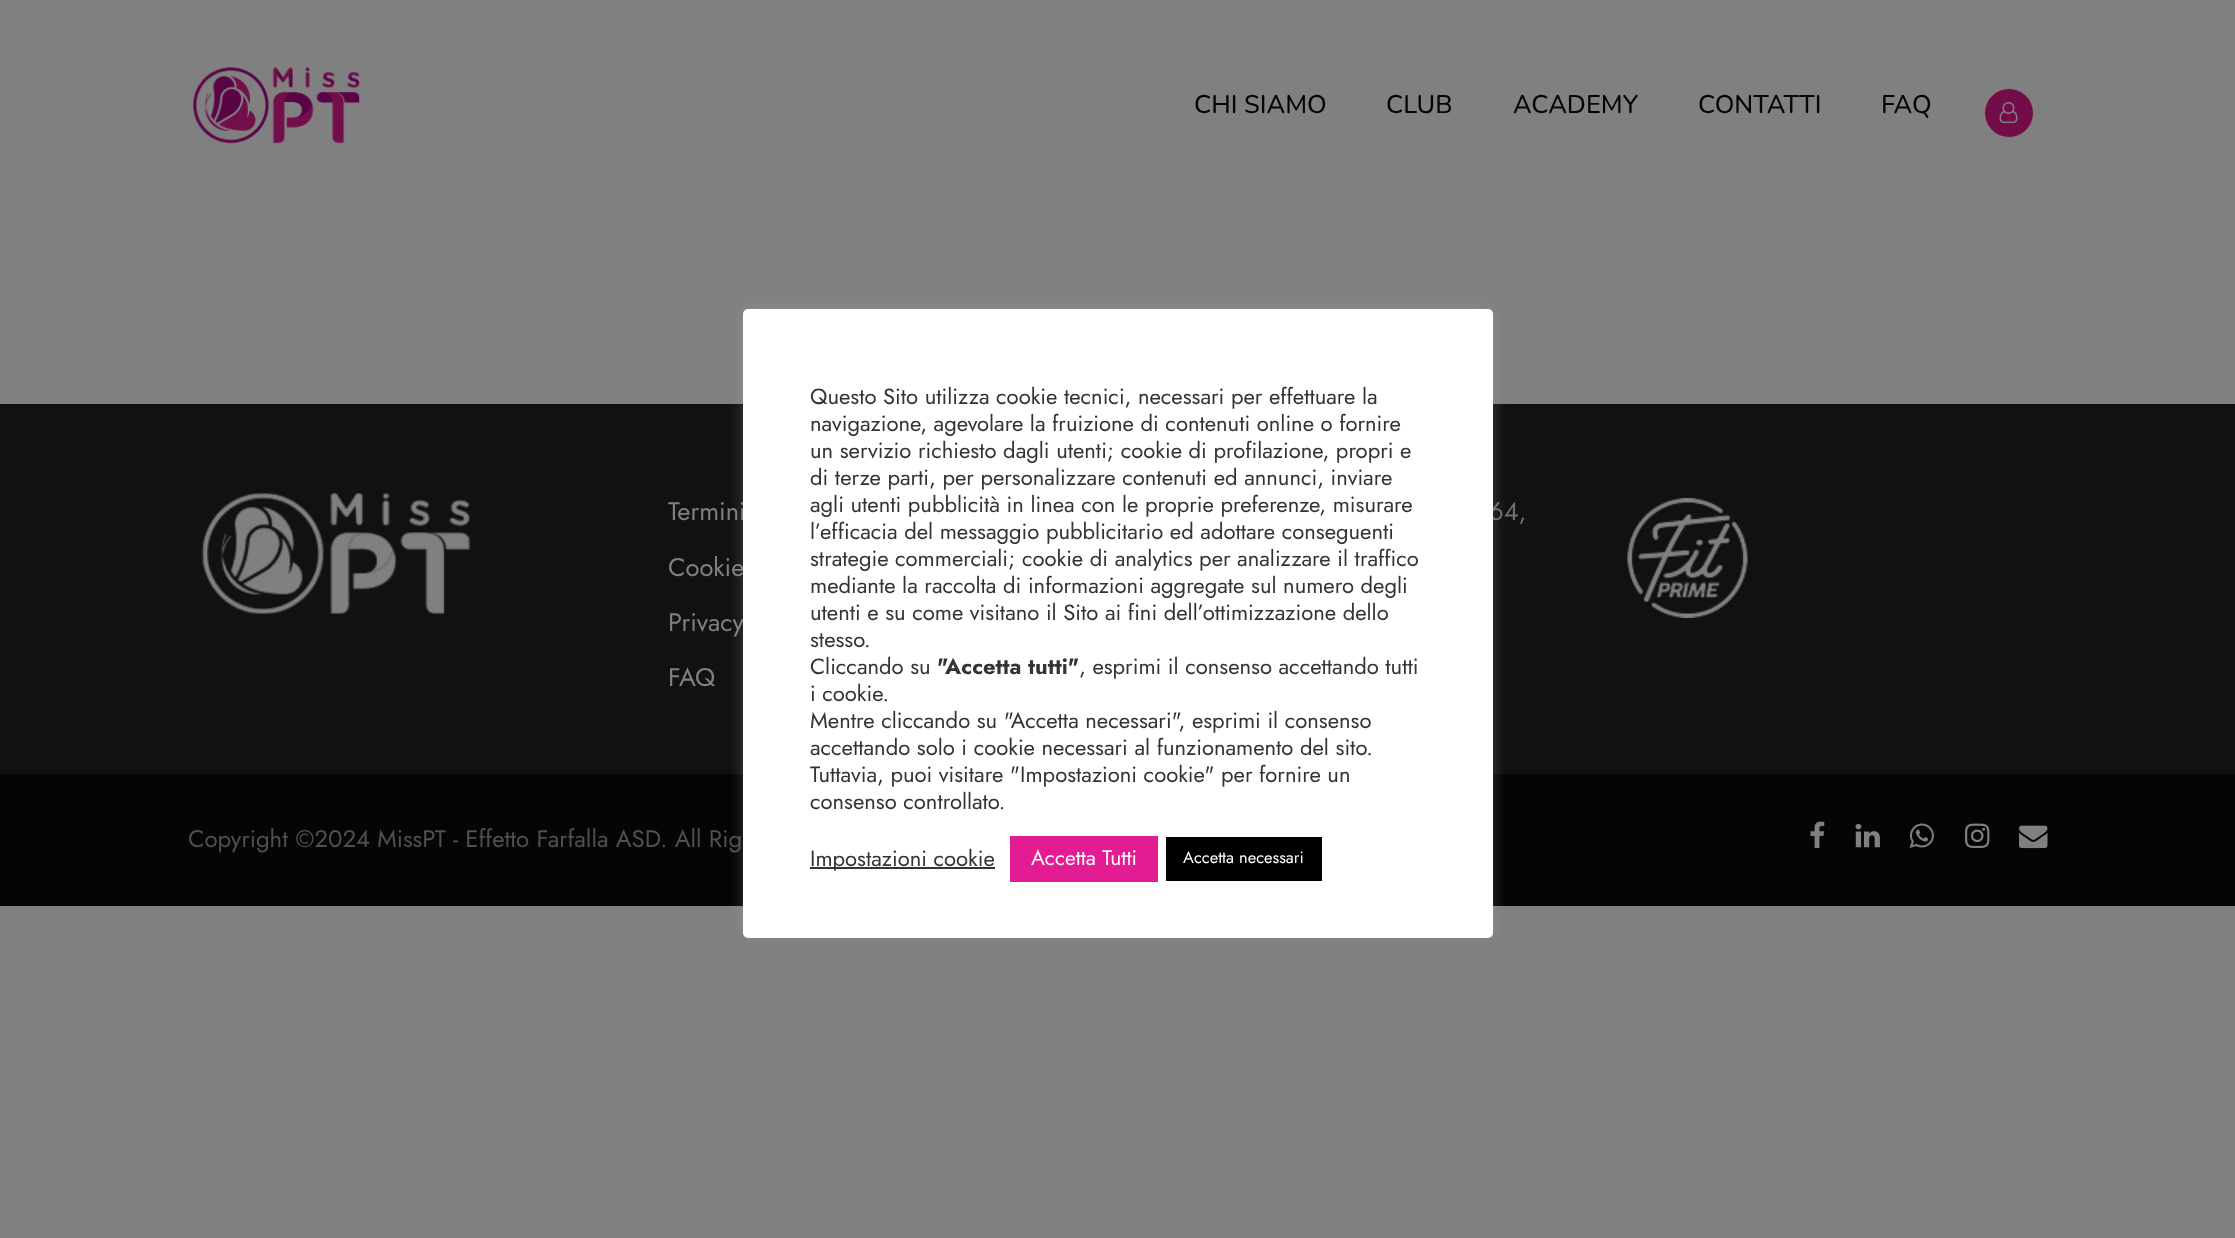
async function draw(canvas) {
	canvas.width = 2235;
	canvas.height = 1238;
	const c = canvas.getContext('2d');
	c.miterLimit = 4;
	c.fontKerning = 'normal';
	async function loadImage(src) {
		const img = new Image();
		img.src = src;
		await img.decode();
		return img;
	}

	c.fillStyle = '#808080';
	c.fillRect(0, 0, 2235, 1238);
	c.drawImage(await loadImage('img1.png'), 192, 67, 168, 77);
	c.font = '500 25.5px Nunito';
	c.fillStyle = '#050505';
	for (const [text, x, y] of [
		['CHI SIAMO', 1194, 113],
		['CLUB', 1386, 113],
		['ACADEMY', 1513, 113],
		['CONTATTI', 1698, 113],
		['FAQ', 1881, 113],
	]) {
		c.fillText(text, x, y);
	}
	c.fillStyle = '#730d49';
	c.beginPath();
	c.arc(2009, 113, 24, 0, 2 * Math.PI);
	c.fill();
	c.drawImage(await loadImage('img2.png'), 1999, 102, 19, 21);
	c.fillStyle = '#111';
	c.fillRect(0, 404, 2235, 370);
	c.drawImage(await loadImage('img3.png'), 201, 493, 270, 121);
	c.font = '25.5px Jost';
	c.fillStyle = '#808080';
	for (const [text, x, y] of [
		['Termini', 668, 520],
		['Cookie', 668, 576],
		['Privacy', 668, 631],
		['FAQ', 668, 686],
	]) {
		c.fillText(text, x, y);
	}
	c.fillStyle = '#6f6f6f';
	c.fillText('64,', 1489, 520);
	c.drawImage(await loadImage('img4.png'), 1627, 498, 121, 120);
	c.fillStyle = '#050505';
	c.fillRect(0, 774, 2235, 132);
	c.font = '24px Jost';
	c.fillStyle = '#505050';
	c.fillText('Copyright ©2024 MissPT - Effetto Farfalla ASD. All Rig', 188, 847);
	c.drawImage(await loadImage('img5.png'), 1810, 821, 15, 28);
	c.drawImage(await loadImage('img6.png'), 1855, 823, 25, 25);
	c.drawImage(await loadImage('img7.png'), 1909, 823, 25, 26);
	c.drawImage(await loadImage('img8.png'), 1965, 823, 25, 25);
	c.drawImage(await loadImage('img9.png'), 2019, 825, 29, 24);
	c.fillStyle = '#acabab4d';
	c.filter = 'blur(7.5px)';
	c.beginPath();
	c.roundRect(743, 308, 750, 628, 5);
	c.fill();
	c.filter = 'none';
	c.fillStyle = '#fff';
	c.beginPath();
	c.roundRect(743, 309, 750, 629, 5);
	c.fill();
	c.font = '22px Jost';
	c.fillStyle = '#333';
	for (const [text, x, y] of [
		['Questo Sito utilizza cookie tecnici, necessari per effettuare la', 810, 404],
		['navigazione, agevolare la fruizione di contenuti online o fornire', 810, 431],
		['un servizio richiesto dagli utenti; cookie di profilazione, propri e', 810, 458],
		['di terze parti, per personalizzare contenuti ed annunci, inviare', 810, 485],
		['agli utenti pubblicità in linea con le proprie preferenze, misurare', 810, 512],
		['l’efficacia del messaggio pubblicitario ed adottare conseguenti', 810, 539],
		['strategie commerciali; cookie di analytics per analizzare il traffico', 810, 566],
		['mediante la raccolta di informazioni aggregate sul numero degli', 810, 593],
		['utenti e su come visitano il Sito ai fini dell’ottimizzazione dello', 810, 620],
		['stesso.', 810, 647],
		['Cliccando su', 810, 674],
	]) {
		c.fillText(text, x, y);
	}
	c.font = 'bold 22px Jost';
	c.fillText('"Accetta tutti"', 937, 674);
	c.font = '22px Jost';
	for (const [text, x, y] of [
		[', esprimi il consenso accettando tutti', 1079, 674],
		['i cookie.', 810, 701],
		['Mentre cliccando su "Accetta necessari", esprimi il consenso', 810, 728],
		['accettando solo i cookie necessari al funzionamento del sito.', 810, 755],
		['Tuttavia, puoi visitare "Impostazioni cookie" per fornire un', 810, 782],
		['consenso controllato.', 810, 809],
	]) {
		c.fillText(text, x, y);
	}
	c.fillRect(810, 867, 185, 2);
	c.fillText('Impostazioni cookie', 810, 866);
	c.fillStyle = '#e31c93';
	c.fillRect(1010, 836, 148, 46);
	c.font = '21px Jost';
	c.fillStyle = '#fff';
	c.fillText('Accetta Tutti', 1031, 865);
	c.fillStyle = '#000';
	c.fillRect(1166, 837, 156, 44);
	c.font = '16.5px Jost';
	c.fillStyle = '#fff';
	c.fillText('Accetta necessari', 1183, 863);
}

draw(document.querySelector('canvas'));
